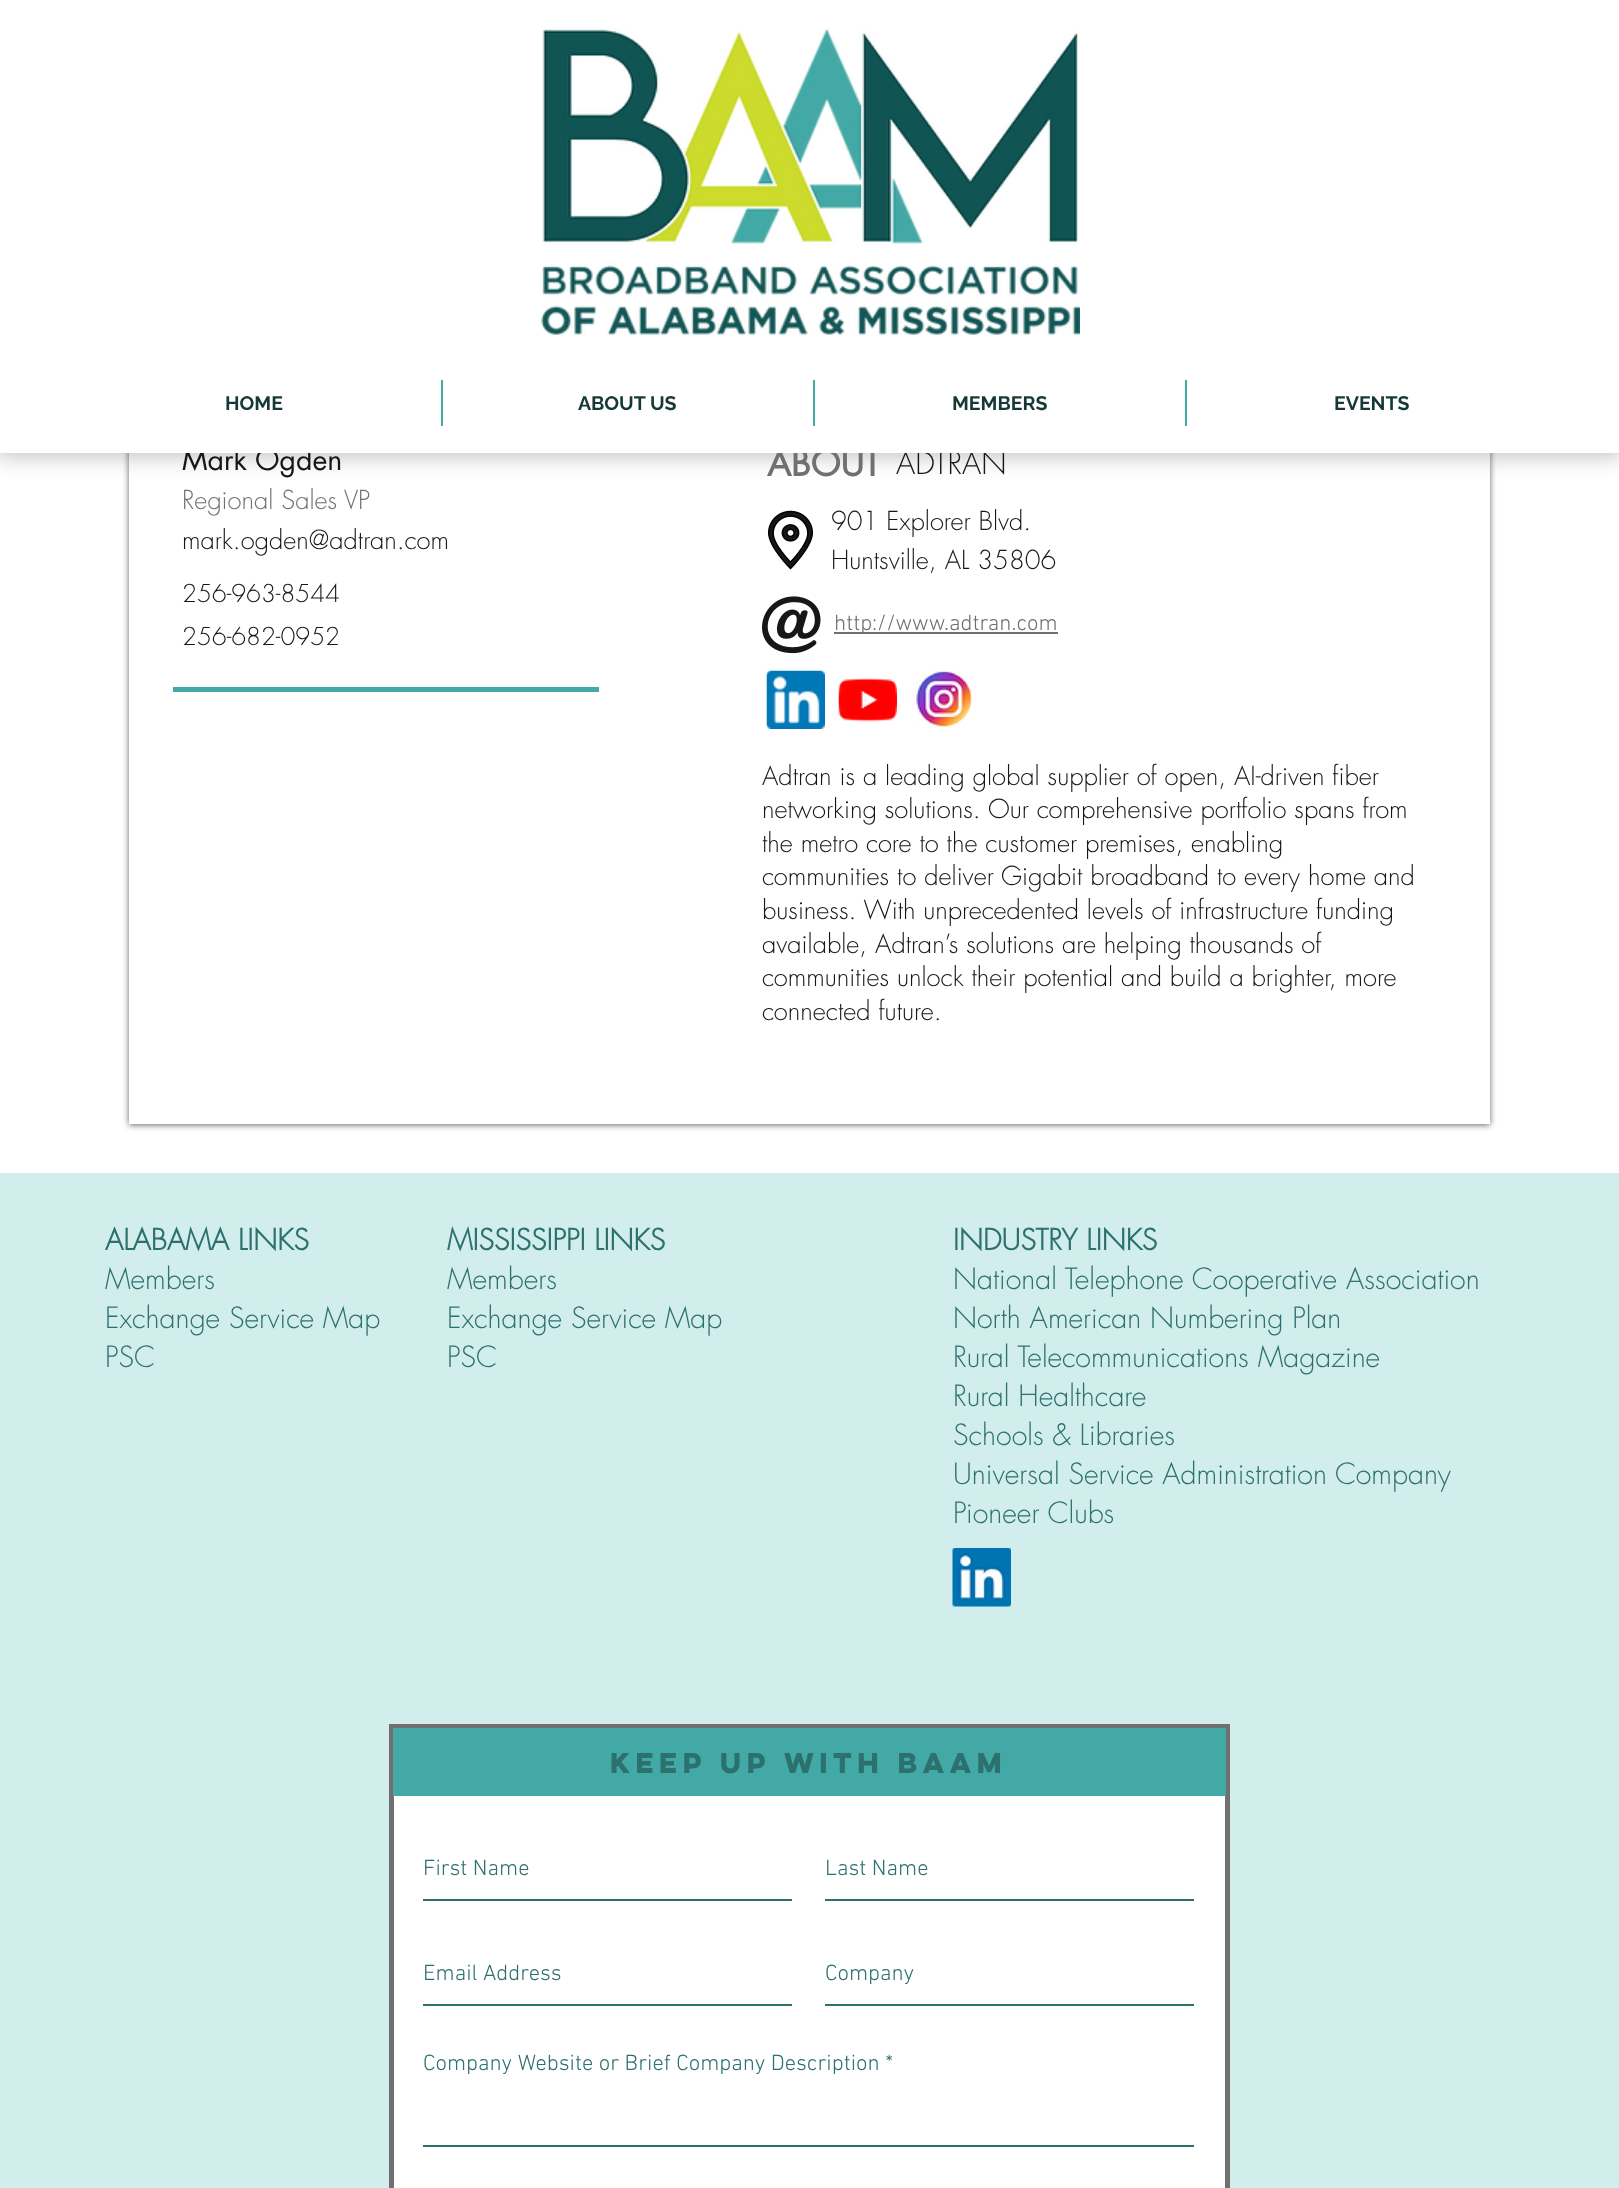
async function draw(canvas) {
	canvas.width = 1619;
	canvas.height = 2188;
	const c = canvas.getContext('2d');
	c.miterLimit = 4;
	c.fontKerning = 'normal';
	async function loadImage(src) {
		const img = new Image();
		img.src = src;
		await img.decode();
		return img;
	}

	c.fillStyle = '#fff';
	c.fillRect(0, 0, 1619, 2188);
	c.save();
	c.beginPath();
	c.moveTo(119, 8);
	c.lineTo(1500, 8);
	c.lineTo(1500, 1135);
	c.lineTo(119, 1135);
	c.closePath();
	c.moveTo(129, 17);
	c.lineTo(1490, 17);
	c.lineTo(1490, 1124);
	c.lineTo(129, 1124);
	c.closePath();
	c.clip('evenodd');
	c.fillStyle = '#00000099';
	c.filter = 'blur(3px)';
	c.beginPath();
	c.rect(129, 18, 1361, 1107);
	c.fill();
	c.filter = 'none';
	c.restore();
	c.fillStyle = '#ffffffb3';
	c.fillRect(129, 453, 1361, 671);
	c.fillStyle = '#00000040';
	c.filter = 'blur(11px)';
	c.beginPath();
	c.rect(-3, -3, 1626, 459);
	c.fill();
	c.filter = 'none';
	c.font = '28.5px futura';
	c.fillStyle = '#171717';
	c.fillText('Mark Ogden', 182, 470);
	c.font = 'bold 34.5px futura';
	c.fillStyle = '#707070';
	c.fillText('ABOUT', 767, 476);
	c.font = '300 30px futura';
	c.fillStyle = '#171717';
	c.fillText('ADTRAN', 896, 474);
	c.fillStyle = '#fff';
	c.fillRect(0, 0, 1619, 453);
	c.drawImage(await loadImage('img1.png'), 541, 27, 539, 308);
	c.font = 'bold 19.5px Raleway';
	c.fillStyle = '#163837';
	c.fillText('HOME', 225, 410);
	c.fillStyle = '#43a9a6';
	c.fillRect(441, 380, 2, 46);
	c.fillStyle = '#163837';
	c.fillText('ABOUT US', 578, 410);
	c.fillStyle = '#43a9a6';
	c.fillRect(813, 380, 2, 46);
	c.fillStyle = '#163837';
	c.fillText('MEMBERS', 952, 410);
	c.fillStyle = '#43a9a6';
	c.fillRect(1185, 380, 2, 46);
	c.fillStyle = '#163837';
	c.fillText('EVENTS', 1334, 410);
	c.font = '300 25.5px futura';
	c.fillStyle = '#707070';
	c.fillText('Regional Sales VP', 182, 509);
	c.fillStyle = '#171717';
	c.fillText('mark.ogden@adtran.com', 182, 549);
	c.drawImage(await loadImage('img2.png'), 767, 510, 47, 60);
	c.fillText('901 Explorer Blvd.', 831, 530);
	c.fillText('Huntsville, AL 35806', 831, 569);
	c.font = '300 24px futura';
	c.fillText('256-963-8544', 182, 602);
	c.fillText('256-682-0952', 182, 645);
	c.drawImage(await loadImage('img3.png'), 762, 596, 59, 58);
	c.fillStyle = '#707070';
	c.fillRect(834, 632, 224, 2);
	c.font = '300 22.5px "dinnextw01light"';
	c.fillText('http://www.adtran.com', 834, 630);
	c.fillStyle = '#43a9a6';
	c.fillRect(173, 687, 426, 5);
	c.drawImage(await loadImage('img4.png'), 766, 670, 59, 59);
	c.drawImage(await loadImage('img5.png'), 838, 678, 59, 44);
	c.drawImage(await loadImage('img6.png'), 916, 671, 56, 57);
	c.font = '300 25.5px futura';
	c.fillStyle = '#171717';
	for (const [text, x, y] of [
		['Adtran is a leading global supplier of open, AI-driven fiber', 762, 785],
		['networking solutions. Our comprehensive portfolio spans from', 762, 818],
		['the metro core to the customer premises, enabling', 762, 852],
		['communities to deliver Gigabit broadband to every home and', 762, 885],
		['business. With unprecedented levels of infrastructure funding', 762, 919],
		['available, Adtran’s solutions are helping thousands of', 762, 953],
		['communities unlock their potential and build a brighter, more', 762, 986],
		['connected future.', 762, 1020],
	]) {
		c.fillText(text, x, y);
	}
	c.fillStyle = '#d1edec';
	c.fillRect(0, 1173, 1619, 1015);
	c.font = 'bold 28.5px "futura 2"';
	c.fillStyle = '#2d716f';
	c.fillText('ALABAMA LINKS', 105, 1250);
	c.font = '300 28.5px futura';
	for (const [text, x, y] of [
		['Members', 105, 1289],
		['Exchange Service Map', 105, 1328],
		['PSC', 105, 1367],
	]) {
		c.fillText(text, x, y);
	}
	c.font = 'bold 28.5px "futura 2"';
	c.fillText('MISSISSIPPI LINKS', 447, 1250);
	c.font = '300 28.5px futura';
	for (const [text, x, y] of [
		['Members', 447, 1289],
		['Exchange Service Map', 447, 1328],
		['PSC', 447, 1367],
	]) {
		c.fillText(text, x, y);
	}
	c.font = 'bold 28.5px "futura 2"';
	c.fillText('INDUSTRY LINKS', 953, 1250);
	c.font = '300 28.5px futura';
	for (const [text, x, y] of [
		['National Telephone Cooperative Association', 953, 1289],
		['North American Numbering Plan', 953, 1328],
		['Rural Telecommunications Magazine', 953, 1367],
		['Rural Healthcare', 953, 1406],
		['Schools & Libraries', 953, 1445],
		['Universal Service Administration Company', 953, 1484],
		['Pioneer Clubs', 953, 1523],
	]) {
		c.fillText(text, x, y);
	}
	c.drawImage(await loadImage('img7.png'), 952, 1548, 59, 59);
	c.fillStyle = '#fff';
	c.fillRect(394, 1796, 831, 392);
	c.strokeStyle = '#707070';
	c.lineWidth = 5;
	c.strokeRect(391.5, 1726.5, 836, 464);
	c.fillStyle = '#43a9a6';
	c.fillRect(393, 1728, 833, 68);
	c.font = 'bold 25.5px "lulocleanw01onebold"';
	c.fillStyle = '#2d716f';
	c.fillText('Keep up with BAAM', 610, 1773);
	c.fillRect(423, 1899, 369, 2);
	c.font = '300 22.5px "dinnextw01light"';
	c.fillText('First Name', 423, 1875);
	c.fillRect(825, 1899, 369, 2);
	c.fillText('Last Name', 825, 1875);
	c.fillRect(423, 2004, 369, 2);
	c.fillText('Email Address', 423, 1980);
	c.fillRect(825, 2004, 369, 2);
	c.fillText('Company', 825, 1980);
	c.fillText('Company Website or Brief Company Description *', 423, 2070);
	c.fillRect(423, 2145, 771, 2);
}

draw(document.querySelector('canvas'));
